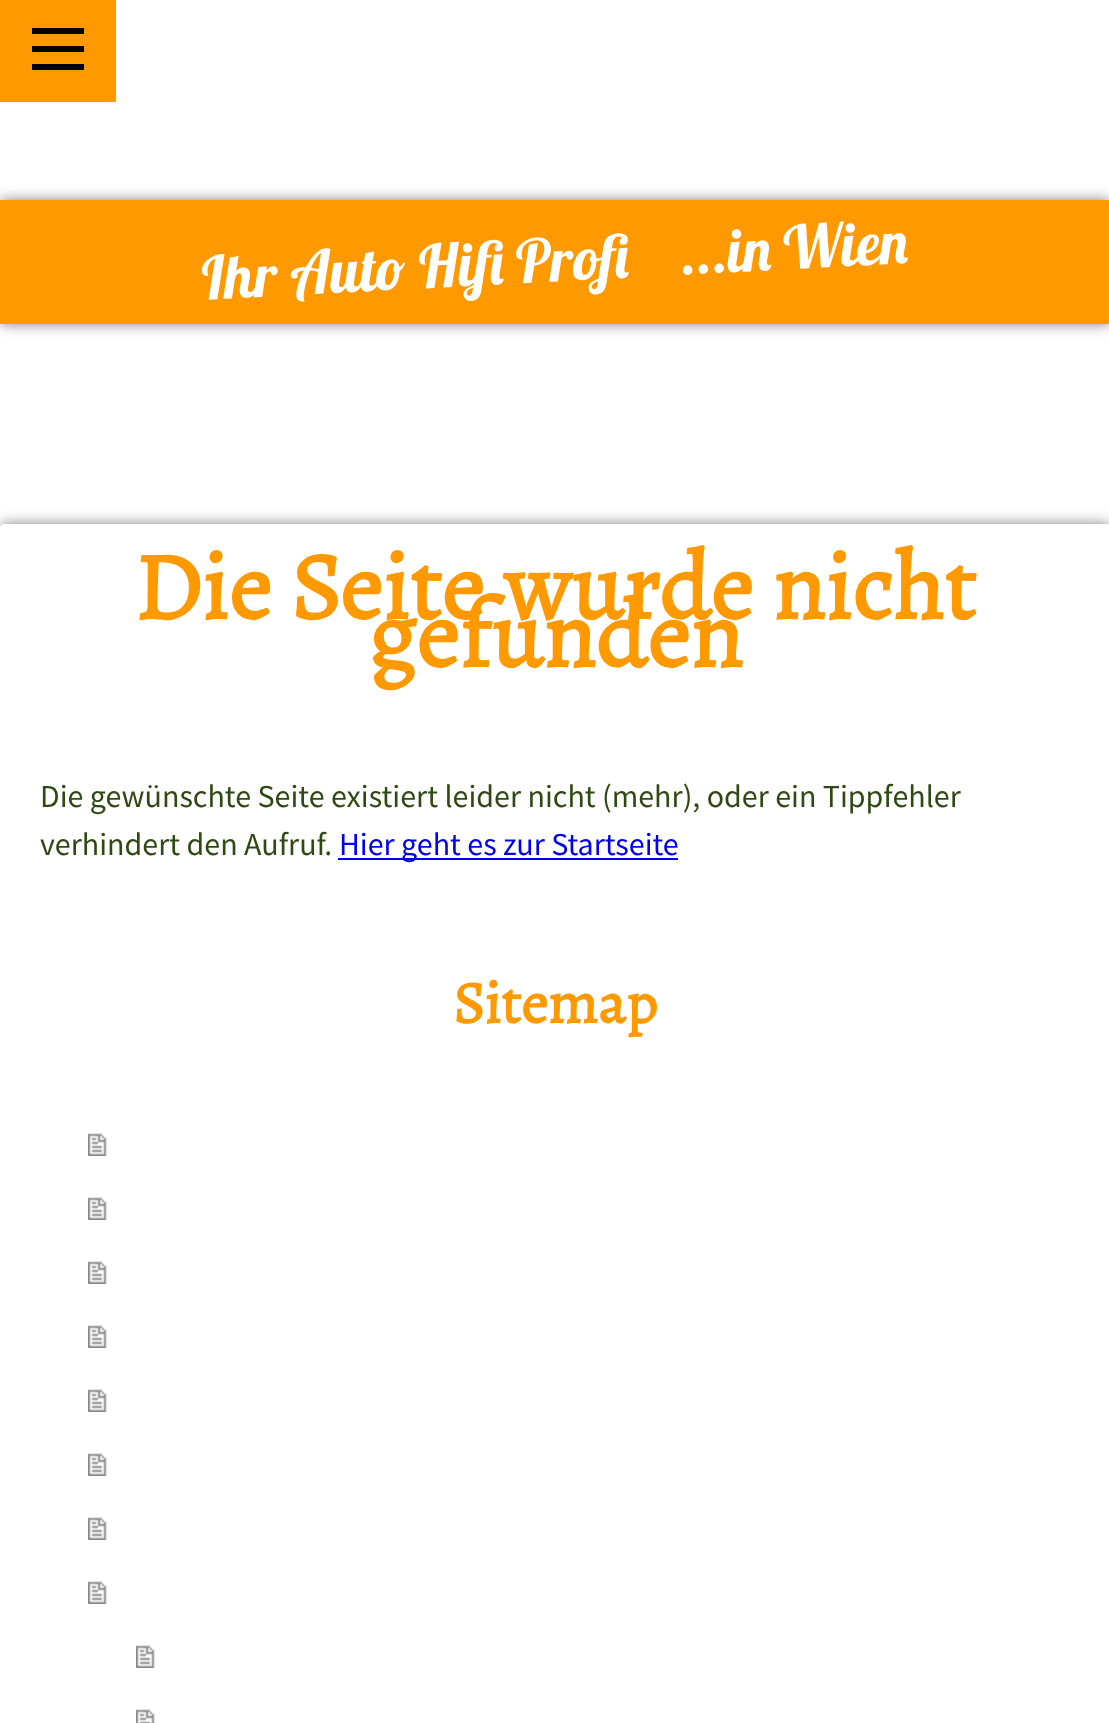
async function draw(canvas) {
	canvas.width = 1109;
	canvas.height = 1723;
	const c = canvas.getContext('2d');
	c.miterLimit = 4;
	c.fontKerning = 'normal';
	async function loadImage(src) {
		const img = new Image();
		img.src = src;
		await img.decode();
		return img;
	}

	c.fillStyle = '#fff';
	c.fillRect(0, 0, 1109, 1723);
	c.fillStyle = '#00000080';
	c.filter = 'blur(7px)';
	c.beginPath();
	c.rect(0, 200, 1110, 124);
	c.fill();
	c.filter = 'none';
	for (const [x, y, w, h, color] of [
		[0, 200, 1109, 124, '#f90'],
		[0, 0, 116, 102, '#f90'],
		[32, 46, 52, 6, '#000'],
		[32, 28, 52, 6, '#000'],
		[32, 64, 52, 6, '#000'],
	]) {
		c.fillStyle = color;
		c.fillRect(x, y, w, h);
	}
	c.font = '60px Lobster';
	c.fillStyle = '#fff';
	c.save();
	c.translate(203, 300);
	c.rotate(-3 * Math.PI / 180);
	c.fillText('Ihr Auto Hifi Profi    ...in Wien', 0, 0);
	c.restore();
	c.save();
	c.beginPath();
	c.moveTo(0, 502);
	c.lineTo(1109, 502);
	c.lineTo(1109, 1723);
	c.lineTo(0, 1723);
	c.closePath();
	c.moveTo(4, 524);
	c.lineTo(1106, 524);
	c.bezierCurveTo(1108, 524, 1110, 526, 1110, 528);
	c.lineTo(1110, 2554);
	c.bezierCurveTo(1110, 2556, 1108, 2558, 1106, 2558);
	c.lineTo(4, 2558);
	c.bezierCurveTo(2, 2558, 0, 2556, 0, 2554);
	c.lineTo(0, 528);
	c.bezierCurveTo(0, 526, 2, 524, 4, 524);
	c.closePath();
	c.clip('evenodd');
	c.fillStyle = '#00000080';
	c.filter = 'blur(7px)';
	c.beginPath();
	c.roundRect(0, 524, 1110, 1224, 4);
	c.fill();
	c.filter = 'none';
	c.restore();
	c.fillStyle = '#ffffffd9';
	c.beginPath();
	c.roundRect(0, 524, 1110, 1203, 4);
	c.fill();
	c.font = 'bold 96px Alegreya';
	c.fillStyle = '#f90';
	c.fillText('Die Seite wurde nicht', 134, 619);
	c.fillText('gefunden', 368, 667);
	c.font = '32px Source Sans Pro';
	c.fillStyle = '#2f4913';
	c.fillText('Die gewünschte Seite existiert leider nicht (mehr), oder ein Tippfehler', 40, 807);
	c.fillText('verhindert den Aufruf.', 40, 855);
	c.fillStyle = '#00e';
	c.fillRect(338, 858, 340, 2);
	c.fillText('Hier geht es zur Startseite', 339, 855);
	c.font = 'bold 60px Alegreya';
	c.fillStyle = '#f90';
	c.fillText('Sitemap', 453, 1023);
	c.drawImage(await loadImage('img1.png'), 88, 1133, 19, 23);
	c.drawImage(await loadImage('img1.png'), 88, 1197, 19, 23);
	c.drawImage(await loadImage('img1.png'), 88, 1261, 19, 23);
	c.drawImage(await loadImage('img1.png'), 88, 1325, 19, 23);
	c.drawImage(await loadImage('img1.png'), 88, 1389, 19, 23);
	c.drawImage(await loadImage('img1.png'), 88, 1453, 19, 23);
	c.drawImage(await loadImage('img1.png'), 88, 1517, 19, 23);
	c.drawImage(await loadImage('img1.png'), 88, 1581, 19, 23);
	c.drawImage(await loadImage('img1.png'), 136, 1645, 19, 23);
	c.drawImage(await loadImage('img2.png'), 136, 1709, 19, 14);
}

draw(document.querySelector('canvas'));
